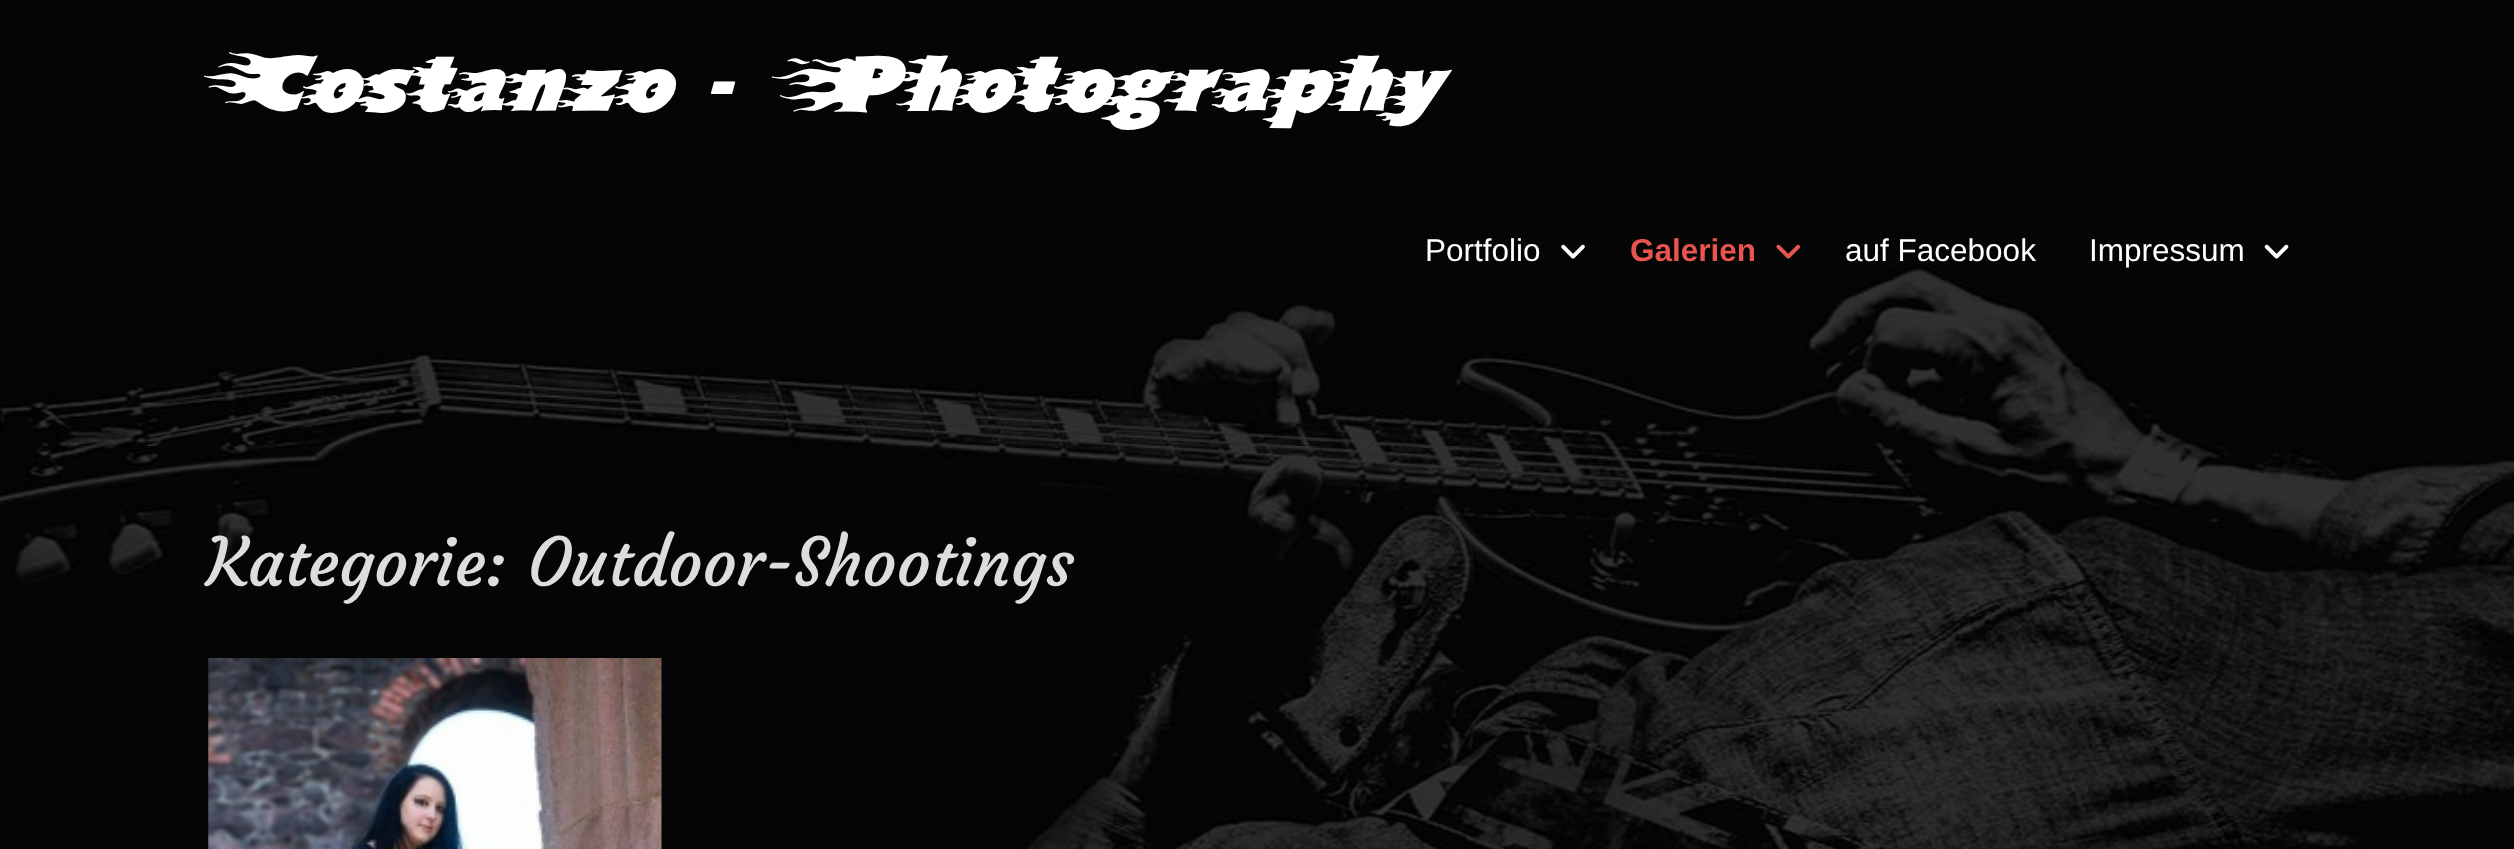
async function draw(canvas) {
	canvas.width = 2514;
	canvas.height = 849;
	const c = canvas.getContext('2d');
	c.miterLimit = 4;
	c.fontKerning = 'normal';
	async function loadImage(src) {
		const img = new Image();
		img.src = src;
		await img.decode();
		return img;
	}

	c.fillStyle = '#fff';
	c.fillRect(0, 0, 2514, 849);
	c.drawImage(await loadImage('img1.png'), 0, 0, 2514, 849);
	c.font = '77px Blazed';
	c.fillText('Costanzo - Photography', 207, 110);
	c.font = '31.5px Liberation Sans';
	c.fillText('Portfolio', 1425, 261);
	c.drawImage(await loadImage('img2.png'), 1561, 244, 24, 15);
	c.font = 'bold 31.5px Liberation Sans';
	c.fillStyle = '#e8554e';
	c.fillText('Galerien', 1630, 261);
	c.drawImage(await loadImage('img3.png'), 1776, 244, 25, 15);
	c.font = '31.5px Liberation Sans';
	c.fillStyle = '#fff';
	c.fillText('auf Facebook', 1845, 261);
	c.fillText('Impressum', 2089, 261);
	c.drawImage(await loadImage('img4.png'), 2264, 244, 25, 15);
	c.font = '66.5px Courgette';
	c.fillStyle = '#ddd';
	c.fillText('Kategorie: Outdoor-Shootings', 207, 586);
	c.drawImage(await loadImage('img5.png'), 208, 658, 454, 191);
}

draw(document.querySelector('canvas'));
